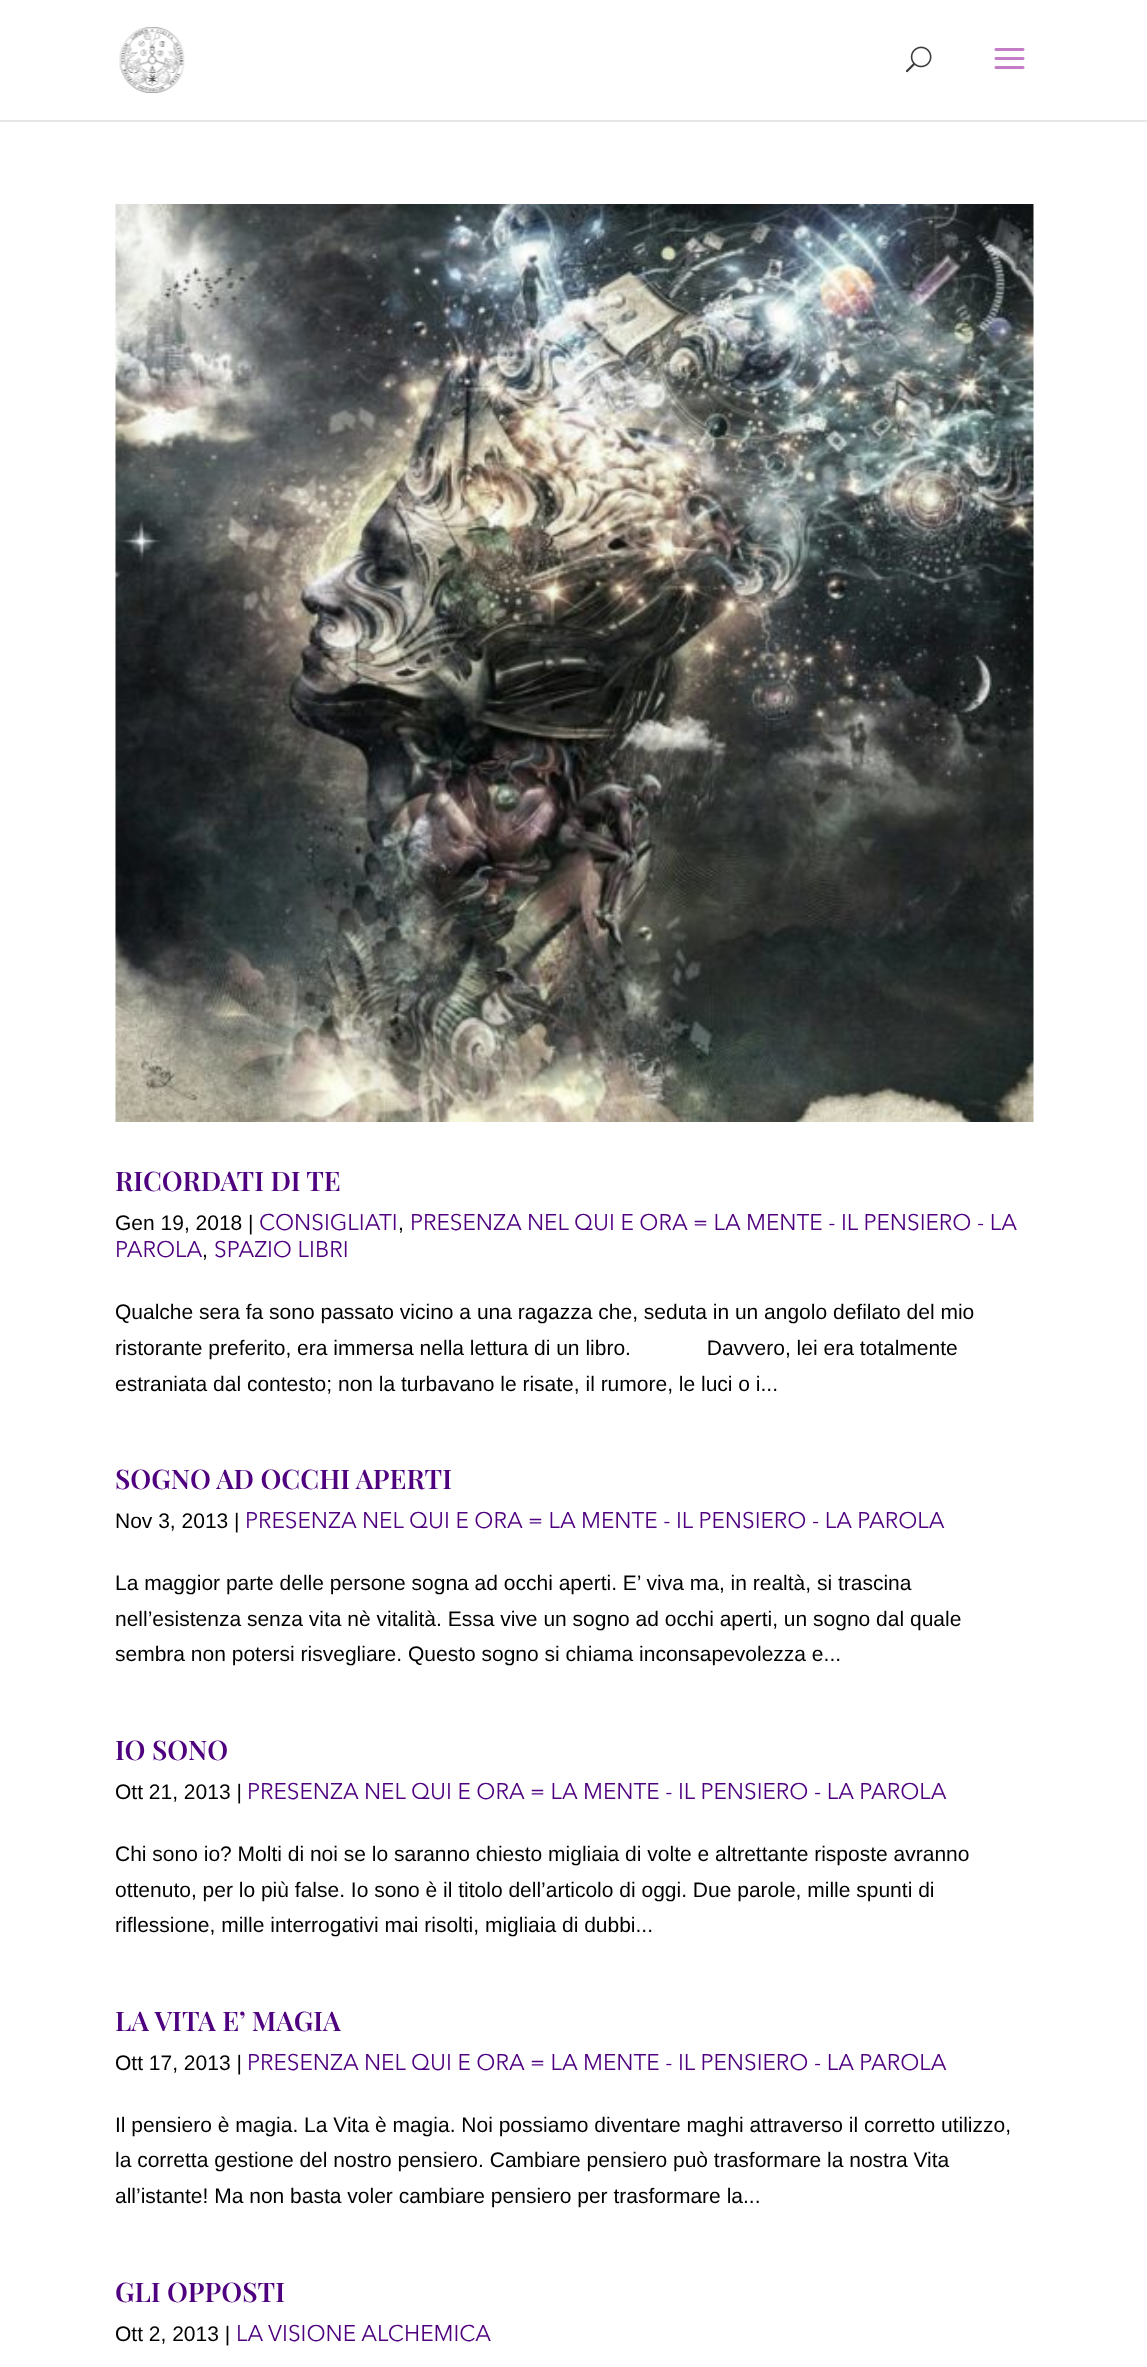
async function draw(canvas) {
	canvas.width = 1147;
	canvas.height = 2367;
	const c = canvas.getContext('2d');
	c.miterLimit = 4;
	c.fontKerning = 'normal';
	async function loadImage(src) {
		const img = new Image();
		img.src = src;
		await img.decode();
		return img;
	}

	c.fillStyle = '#fff';
	c.fillRect(0, 0, 1147, 2367);
	c.fillStyle = '#e6e6e6';
	c.beginPath();
	c.moveTo(0, 120);
	c.lineTo(0, 122);
	c.lineTo(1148, 122);
	c.lineTo(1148, 2);
	c.lineTo(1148, 120);
	c.closePath();
	c.fill();
	c.drawImage(await loadImage('img1.png'), 119, 27, 66, 66);
	c.drawImage(await loadImage('img2.png'), 905, 46, 27, 27);
	c.drawImage(await loadImage('img3.png'), 994, 48, 31, 21);
	c.drawImage(await loadImage('img4.png'), 115, 204, 919, 918);
	c.font = '600 27px Playfair Display';
	c.fillStyle = '#4e007f';
	c.fillText('RICORDATI DI TE', 115, 1191);
	c.font = '21px Liberation Sans';
	c.fillStyle = '#000';
	c.fillText('Gen 19, 2018 |', 115, 1230);
	c.font = '22.5px Avenir Next';
	c.fillStyle = '#4e007f';
	c.fillText('CONSIGLIATI', 259, 1230);
	c.font = '21px Liberation Sans';
	c.fillStyle = '#000';
	c.fillText(',', 398, 1230);
	c.font = '22.5px Avenir Next';
	c.fillStyle = '#4e007f';
	c.fillText('PRESENZA NEL QUI E ORA = LA MENTE - IL PENSIERO - LA', 410, 1230);
	c.fillText('PAROLA', 115, 1257);
	c.font = '21px Liberation Sans';
	c.fillStyle = '#000';
	c.fillText(',', 202, 1257);
	c.font = '22.5px Avenir Next';
	c.fillStyle = '#4e007f';
	c.fillText('SPAZIO LIBRI', 214, 1257);
	c.font = '21px Liberation Sans';
	c.fillStyle = '#000';
	for (const [text, x, y] of [
		['Qualche sera fa sono passato vicino a una ragazza che, seduta in un angolo defilato del mio', 115, 1319],
		['ristorante preferito, era immersa nella lettura di un libro.             Davvero, lei era totalmente', 115, 1355],
		['estraniata dal contesto; non la turbavano le risate, il rumore, le luci o i...', 115, 1391],
	]) {
		c.fillText(text, x, y);
	}
	c.font = '600 27px Playfair Display';
	c.fillStyle = '#4e007f';
	c.fillText('SOGNO AD OCCHI APERTI', 115, 1489);
	c.font = '21px Liberation Sans';
	c.fillStyle = '#000';
	c.fillText('Nov 3, 2013 |', 115, 1528);
	c.font = '22.5px Avenir Next';
	c.fillStyle = '#4e007f';
	c.fillText('PRESENZA NEL QUI E ORA = LA MENTE - IL PENSIERO - LA PAROLA', 245, 1528);
	c.font = '21px Liberation Sans';
	c.fillStyle = '#000';
	for (const [text, x, y] of [
		['La maggior parte delle persone sogna ad occhi aperti. E’ viva ma, in realtà, si trascina', 115, 1590],
		['nell’esistenza senza vita nè vitalità. Essa vive un sogno ad occhi aperti, un sogno dal quale', 115, 1626],
		['sembra non potersi risvegliare. Questo sogno si chiama inconsapevolezza e...', 115, 1661],
	]) {
		c.fillText(text, x, y);
	}
	c.font = '600 27px Playfair Display';
	c.fillStyle = '#4e007f';
	c.fillText('IO SONO', 115, 1760);
	c.font = '21px Liberation Sans';
	c.fillStyle = '#000';
	c.fillText('Ott 21, 2013 |', 115, 1799);
	c.font = '22.5px Avenir Next';
	c.fillStyle = '#4e007f';
	c.fillText('PRESENZA NEL QUI E ORA = LA MENTE - IL PENSIERO - LA PAROLA', 247, 1799);
	c.font = '21px Liberation Sans';
	c.fillStyle = '#000';
	for (const [text, x, y] of [
		['Chi sono io? Molti di noi se lo saranno chiesto migliaia di volte e altrettante risposte avranno', 115, 1861],
		['ottenuto, per lo più false. Io sono è il titolo dell’articolo di oggi. Due parole, mille spunti di', 115, 1897],
		['riflessione, mille interrogativi mai risolti, migliaia di dubbi...', 115, 1932],
	]) {
		c.fillText(text, x, y);
	}
	c.font = '600 27px Playfair Display';
	c.fillStyle = '#4e007f';
	c.fillText('LA VITA E’ MAGIA', 115, 2031);
	c.font = '21px Liberation Sans';
	c.fillStyle = '#000';
	c.fillText('Ott 17, 2013 |', 115, 2070);
	c.font = '22.5px Avenir Next';
	c.fillStyle = '#4e007f';
	c.fillText('PRESENZA NEL QUI E ORA = LA MENTE - IL PENSIERO - LA PAROLA', 247, 2070);
	c.font = '21px Liberation Sans';
	c.fillStyle = '#000';
	for (const [text, x, y] of [
		['Il pensiero è magia. La Vita è magia. Noi possiamo diventare maghi attraverso il corretto utilizzo,', 115, 2132],
		['la corretta gestione del nostro pensiero. Cambiare pensiero può trasformare la nostra Vita', 115, 2167],
		['all’istante! Ma non basta voler cambiare pensiero per trasformare la...', 115, 2203],
	]) {
		c.fillText(text, x, y);
	}
	c.font = '600 27px Playfair Display';
	c.fillStyle = '#4e007f';
	c.fillText('GLI OPPOSTI', 115, 2302);
	c.font = '21px Liberation Sans';
	c.fillStyle = '#000';
	c.fillText('Ott 2, 2013 |', 115, 2341);
	c.font = '22.5px Avenir Next';
	c.fillStyle = '#4e007f';
	c.fillText('LA VISIONE ALCHEMICA', 236, 2341);
}

draw(document.querySelector('canvas'));
